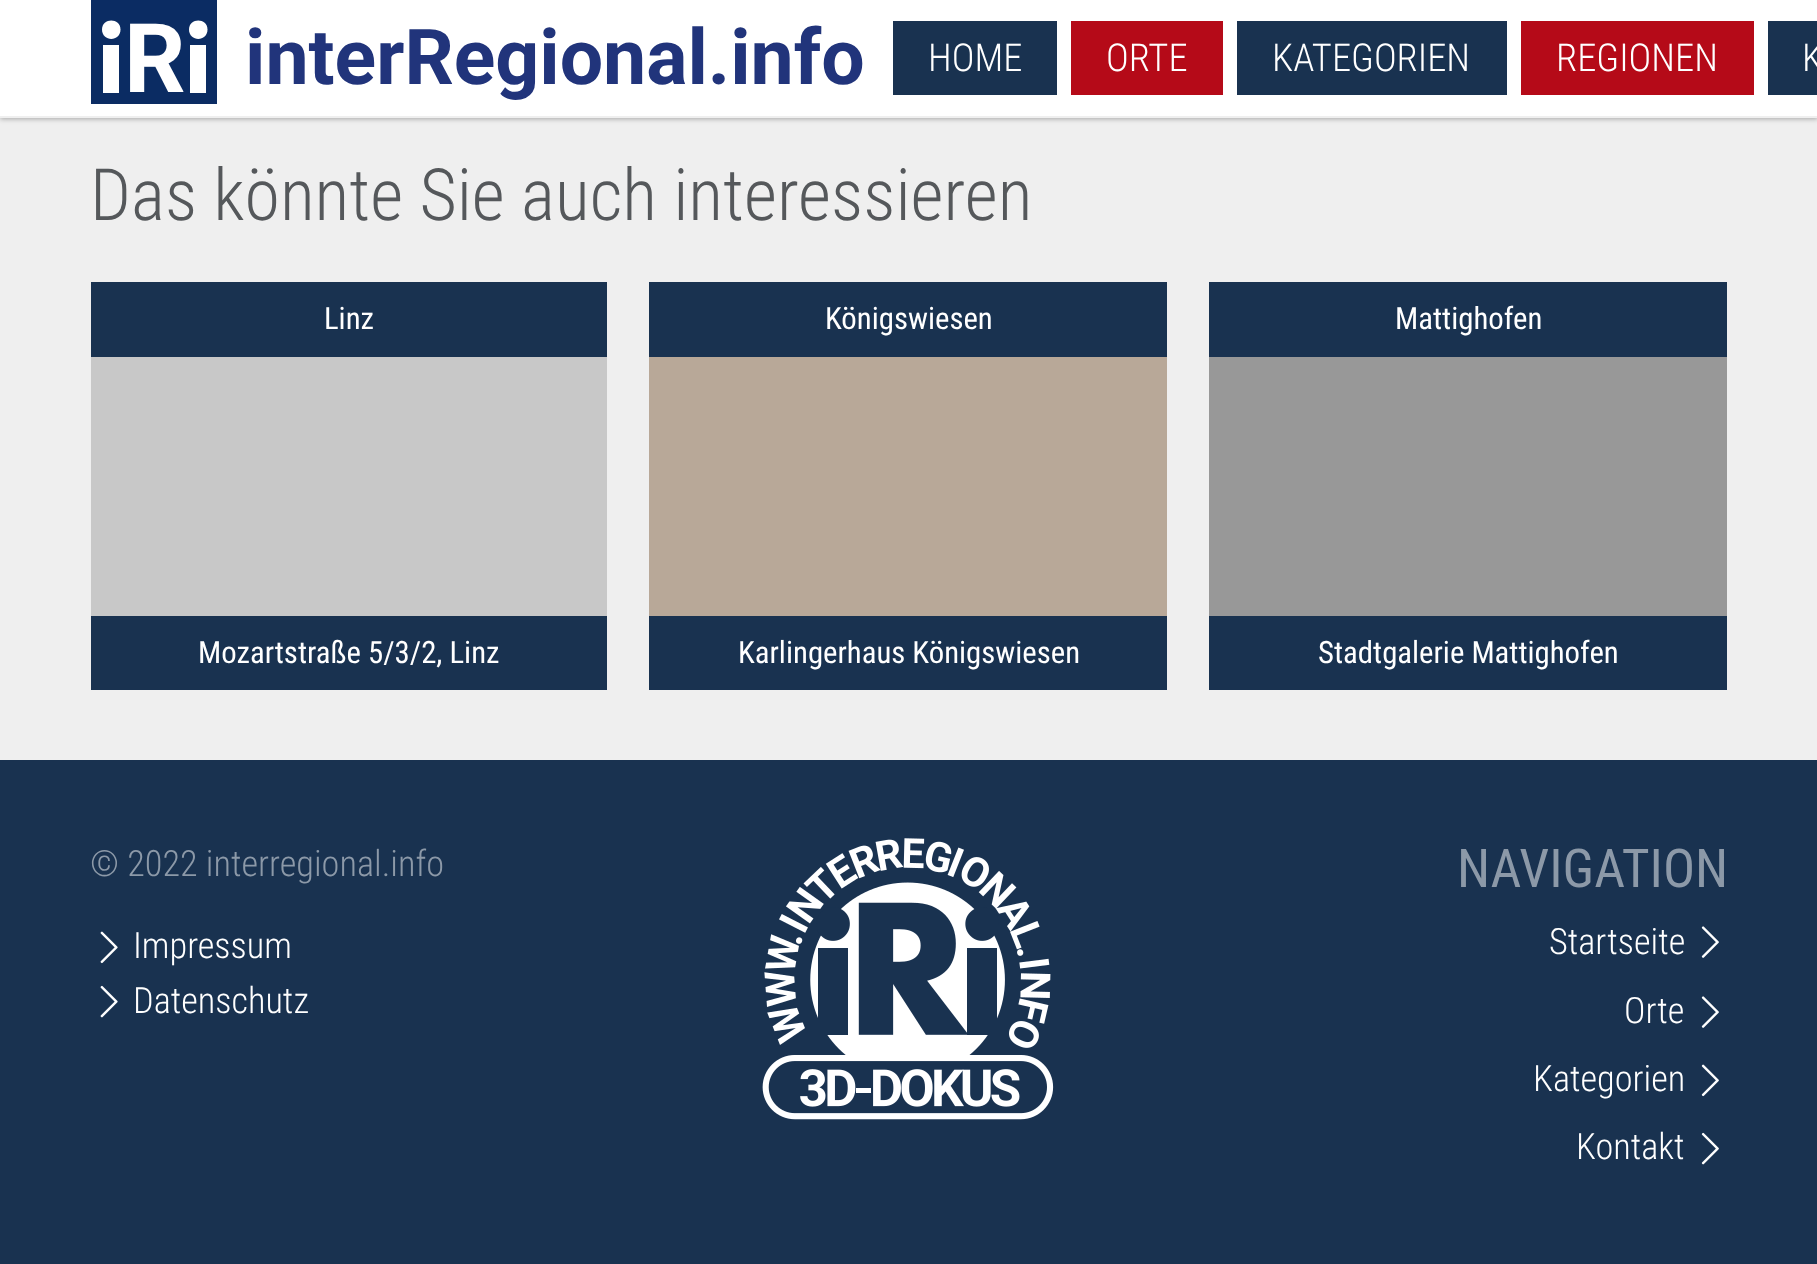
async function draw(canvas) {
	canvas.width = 1817;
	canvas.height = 1264;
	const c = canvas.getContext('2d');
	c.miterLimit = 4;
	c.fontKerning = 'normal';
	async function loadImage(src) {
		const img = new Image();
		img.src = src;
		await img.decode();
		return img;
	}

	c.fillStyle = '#efefef';
	c.fillRect(0, 0, 1817, 1264);
	c.fillStyle = '#0000004d';
	c.filter = 'blur(2.5px)';
	c.beginPath();
	c.rect(0, 2, 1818, 117);
	c.fill();
	c.filter = 'none';
	for (const [x, y, w, h, color] of [
		[0, 0, 1817, 116, '#fff'],
		[0, 116, 1817, 2, '#efefef'],
		[91, 0, 126, 104, '#0b2c63'],
		[103, 45, 16, 48, '#fff'],
	]) {
		c.fillStyle = color;
		c.fillRect(x, y, w, h);
	}
	c.beginPath();
	c.moveTo(102, 29.5);
	c.bezierCurveTo(102, 17.5, 120.5, 17.5, 120.5, 29.5);
	c.bezierCurveTo(120.5, 42, 102, 42, 102, 29.5);
	c.fill();
	c.fillRect(190, 45, 16, 48);
	c.beginPath();
	c.moveTo(189, 29.5);
	c.bezierCurveTo(189, 17.5, 207.5, 17.5, 207.5, 29.5);
	c.bezierCurveTo(207.5, 42, 189, 42, 189, 29.5);
	c.fill();
	c.font = 'bold 96px Roboto';
	c.fillText('R', 124, 92);
	c.font = 'bold 77px Roboto';
	c.fillStyle = '#21347b';
	c.fillText('interRegional.info', 245, 84);
	c.fillStyle = '#193250';
	c.fillRect(893, 21, 164, 74);
	c.font = '300 38.5px Roboto Condensed';
	c.fillStyle = '#fff';
	c.fillText('HOME', 928, 71);
	c.fillStyle = '#b50a18';
	c.fillRect(1071, 21, 152, 74);
	c.fillStyle = '#fff';
	c.fillText('ORTE', 1106, 71);
	c.fillStyle = '#193250';
	c.fillRect(1237, 21, 270, 74);
	c.fillStyle = '#fff';
	c.fillText('KATEGORIEN', 1272, 71);
	c.fillStyle = '#b50a18';
	c.fillRect(1521, 21, 233, 74);
	c.fillStyle = '#fff';
	c.fillText('REGIONEN', 1556, 71);
	c.fillStyle = '#193250';
	c.fillRect(1768, 21, 49, 74);
	c.fillStyle = '#fff';
	c.fillText('K', 1802, 71);
	c.font = '300 72px Roboto Condensed';
	c.fillStyle = '#55585b';
	c.fillText('Das könnte Sie auch interessieren', 90, 220);
	c.fillStyle = '#193250';
	c.fillRect(91, 282, 516, 75);
	c.font = '30.75px Roboto Condensed';
	c.fillStyle = '#fff';
	c.fillText('Linz', 324, 329);
	c.fillStyle = '#c8c8c8';
	c.fillRect(91, 357, 516, 259);
	c.fillStyle = '#193250';
	c.fillRect(91, 616, 516, 74);
	c.fillStyle = '#fff';
	c.fillText('Mozartstraße 5/3/2, Linz', 198, 663);
	c.fillStyle = '#193250';
	c.fillRect(649, 282, 518, 75);
	c.fillStyle = '#fff';
	c.fillText('Königswiesen', 825, 329);
	c.fillStyle = '#b8a898';
	c.fillRect(649, 357, 518, 259);
	c.fillStyle = '#193250';
	c.fillRect(649, 616, 518, 74);
	c.fillStyle = '#fff';
	c.fillText('Karlingerhaus Königswiesen', 738, 663);
	c.fillStyle = '#193250';
	c.fillRect(1209, 282, 518, 75);
	c.fillStyle = '#fff';
	c.fillText('Mattighofen', 1395, 329);
	c.fillStyle = '#989898';
	c.fillRect(1209, 357, 518, 259);
	c.fillStyle = '#193250';
	c.fillRect(1209, 616, 518, 74);
	c.fillStyle = '#fff';
	c.fillText('Stadtgalerie Mattighofen', 1318, 663);
	c.fillStyle = '#193250';
	c.fillRect(0, 760, 1817, 504);
	c.font = '300 36.25px Roboto Condensed';
	c.fillStyle = '#8c99a8';
	c.fillText('© 2022 interregional.info', 90, 876);
	c.drawImage(await loadImage('img1.png'), 100, 931, 18, 33);
	c.fillStyle = '#fff';
	c.fillText('Impressum', 133, 958);
	c.drawImage(await loadImage('img2.png'), 100, 985, 18, 33);
	c.fillText('Datenschutz', 133, 1013);
	c.drawImage(await loadImage('img3.png'), 762, 838, 292, 282);
	c.font = '53.5px Roboto Condensed';
	c.fillStyle = '#8c99a8';
	c.fillText('NAVIGATION', 1457, 887);
	c.font = '300 36.25px Roboto Condensed';
	c.fillStyle = '#fff';
	c.fillText('Startseite', 1549, 954);
	c.drawImage(await loadImage('img4.png'), 1701, 926, 18, 32);
	c.fillText('Orte', 1624, 1023);
	c.drawImage(await loadImage('img4.png'), 1701, 996, 18, 32);
	c.fillText('Kategorien', 1533, 1091);
	c.drawImage(await loadImage('img5.png'), 1701, 1064, 18, 33);
	c.fillText('Kontakt', 1576, 1159);
	c.drawImage(await loadImage('img6.png'), 1701, 1132, 18, 33);
}

draw(document.querySelector('canvas'));
